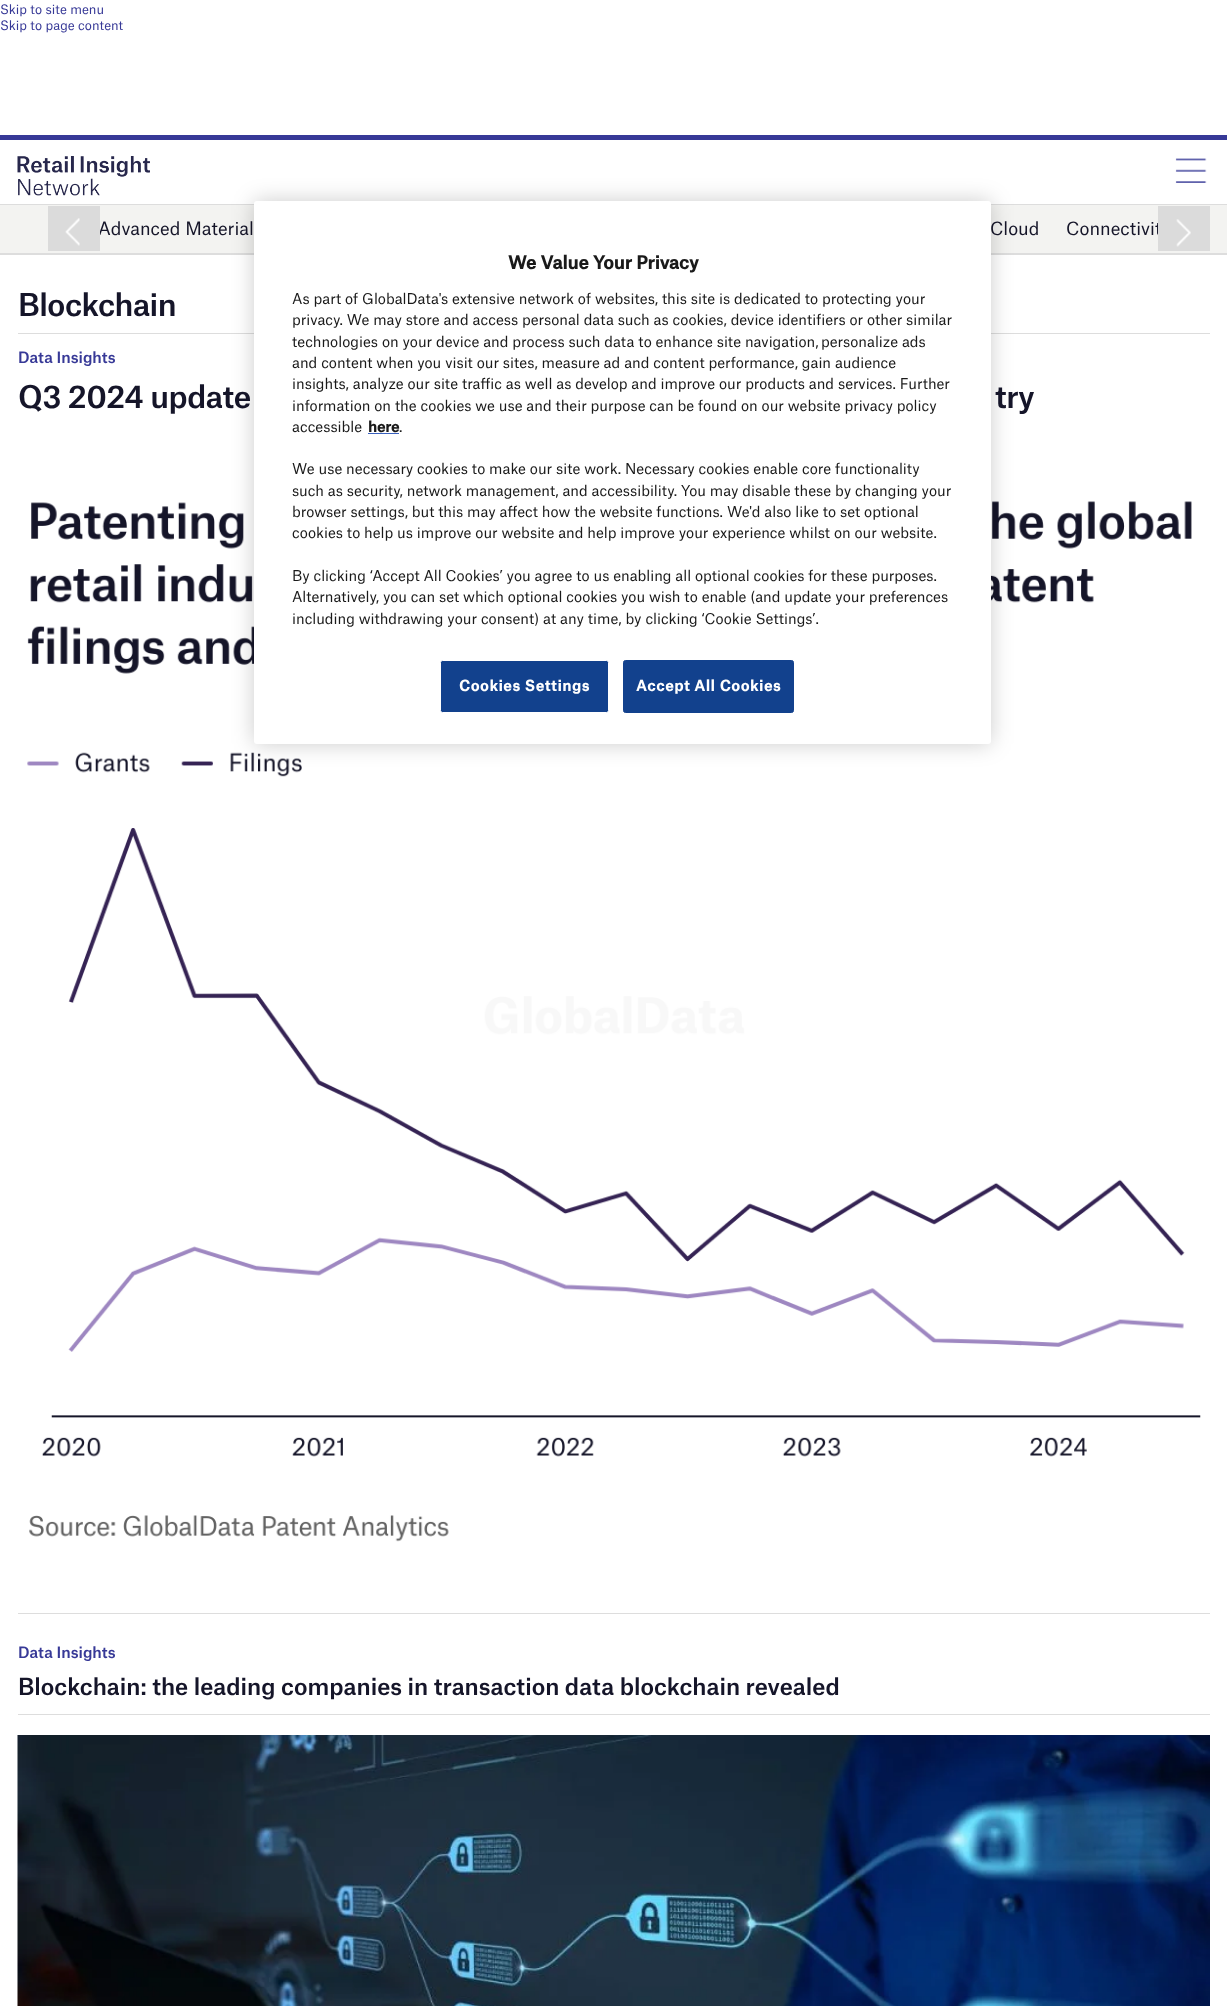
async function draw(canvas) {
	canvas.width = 1227;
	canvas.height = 2006;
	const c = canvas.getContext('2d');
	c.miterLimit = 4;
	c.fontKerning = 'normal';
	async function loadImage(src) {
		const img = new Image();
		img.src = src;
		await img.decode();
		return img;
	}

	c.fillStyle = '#fff';
	c.fillRect(0, 0, 1227, 2006);
	c.font = '12.5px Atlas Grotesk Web';
	c.fillStyle = '#373997';
	c.fillText('Skip to site menu', 0, 14);
	c.fillText('Skip to page content', 0, 30);
	c.fillRect(0, 135, 1227, 5);
	c.fillStyle = '#ddd';
	c.fillRect(0, 253, 1227, 2);
	c.drawImage(await loadImage('img1.png'), 17, 156, 133, 40);
	c.drawImage(await loadImage('img2.png'), 1175, 158, 32, 25);
	c.fillStyle = '#f3f3f1';
	c.fillRect(0, 205, 1227, 48);
	c.fillStyle = '#ddd';
	c.fillRect(0, 204, 1227, 1);
	c.font = '17.5px Atlas Grotesk Web';
	c.fillStyle = '#151529';
	c.fillText('Advanced Material', 98, 235);
	c.fillStyle = '#dbdbdb';
	c.fillRect(48, 206, 52, 45);
	c.drawImage(await loadImage('img3.png'), 65, 218, 15, 28);
	c.fillStyle = '#151529';
	c.fillText('Cloud', 990, 235);
	c.fillText('Connectivit', 1066, 235);
	c.fillStyle = '#dbdbdb';
	c.fillRect(1158, 206, 52, 45);
	c.drawImage(await loadImage('img4.png'), 1176, 219, 15, 28);
	c.fillStyle = '#ddd';
	c.fillRect(18, 333, 1192, 1);
	c.drawImage(await loadImage('img5.png'), 27, 501, 1174, 1041);
	c.fillStyle = '#00000033';
	c.filter = 'blur(11px)';
	c.beginPath();
	c.roundRect(254, 201, 737, 543, 3);
	c.fill();
	c.filter = 'none';
	c.fillStyle = '#fff';
	c.beginPath();
	c.roundRect(254, 201, 737, 543, 3);
	c.fill();
	c.font = 'bold 17.5px Atlas Grotesk Web';
	c.fillStyle = '#1a1a1a';
	c.fillText('We Value Your Privacy', 508, 269);
	c.font = '14.25px Atlas Grotesk Web';
	for (const [text, x, y] of [
		['As part of GlobalData\'s extensive network of websites, this site is dedicated to protecting your', 292, 304],
		['privacy. We may store and access personal data such as cookies, device identifiers or other similar', 292, 325],
		['technologies on your device and process such data to enhance site navigation,', 292, 347],
		['personalize ads', 821, 347],
		['and content when you visit our sites, measure ad and content performance, gain audience', 292, 368],
		['insights, analyze our site traffic as well as develop and improve our products and services. Further', 292, 389],
		['information on the cookies we use and their purpose can be found on our website privacy policy', 292, 411],
		['accessible', 292, 432],
	]) {
		c.fillText(text, x, y);
	}
	c.font = 'bold 14.25px Atlas Grotesk Web';
	c.fillText('here', 368, 432);
	c.fillStyle = '#3860be';
	c.fillRect(368, 433, 31, 1);
	c.font = '14.25px Atlas Grotesk Web';
	c.fillStyle = '#1a1a1a';
	for (const [text, x, y] of [
		['.', 399, 432],
		['We use necessary cookies to make our site work. Necessary cookies enable core functionality', 292, 474],
		['such as security, network management, and accessibility. You may disable these by changing your', 292, 496],
		['browser settings, but this may affect how the website functions. We\'d also like to set optional', 292, 517],
		['cookies to help us improve our website and help improve your experience whilst on our website.', 292, 538],
		['By clicking ‘Accept All Cookies’ you agree to us enabling all optional cookies for these purposes.', 292, 581],
		['Alternatively, you can set which optional cookies you wish to enable (and update your preferences', 292, 602],
		['including withdrawing your consent) at any time, by clicking ‘Cookie Settings’.', 292, 624],
	]) {
		c.fillText(text, x, y);
	}
	c.fillStyle = '#12418d';
	c.beginPath();
	c.roundRect(440.5, 660.5, 168, 52, 2);
	c.fill();
	c.strokeStyle = '#fff';
	c.stroke();
	c.letterSpacing = '0.75px';
	c.font = 'bold 14.25px Atlas Grotesk Web';
	c.fillStyle = '#fff';
	c.fillText('Cookies Settings', 459, 691);
	c.fillStyle = '#12418d';
	c.beginPath();
	c.roundRect(623.5, 660.5, 170, 52, 2);
	c.fill();
	c.strokeStyle = '#12418d';
	c.stroke();
	c.fillStyle = '#fff';
	c.fillText('Accept All Cookies', 636, 691);
	c.letterSpacing = '-0.5px';
	c.font = '500 30px Atlas Grotesk Web';
	c.fillStyle = '#151529';
	c.fillText('Blockchain', 18, 316);
	c.fillStyle = '#ddd';
	c.fillRect(18, 1613, 1192, 1);
	c.letterSpacing = '0px';
	c.font = '500 15px Atlas Grotesk Web';
	c.fillStyle = '#373997';
	c.fillText('Data Insights', 18, 363);
	c.letterSpacing = '-0.5px';
	c.font = '500 30px Atlas Grotesk Web';
	c.fillStyle = '#151529';
	c.fillText('Q3 2024 update', 18, 408);
	c.fillText('try', 995, 408);
	c.fillStyle = '#ddd';
	c.fillRect(18, 1714, 1192, 1);
	c.letterSpacing = '0px';
	c.font = '500 15px Atlas Grotesk Web';
	c.fillStyle = '#373997';
	c.fillText('Data Insights', 18, 1658);
	c.font = '500 22.5px Atlas Grotesk Web';
	c.fillStyle = '#151529';
	c.fillText('Blockchain: the leading companies in transaction data blockchain revealed', 18, 1695);
	c.drawImage(await loadImage('img6.png'), 17, 1735, 1193, 271);
}

draw(document.querySelector('canvas'));
